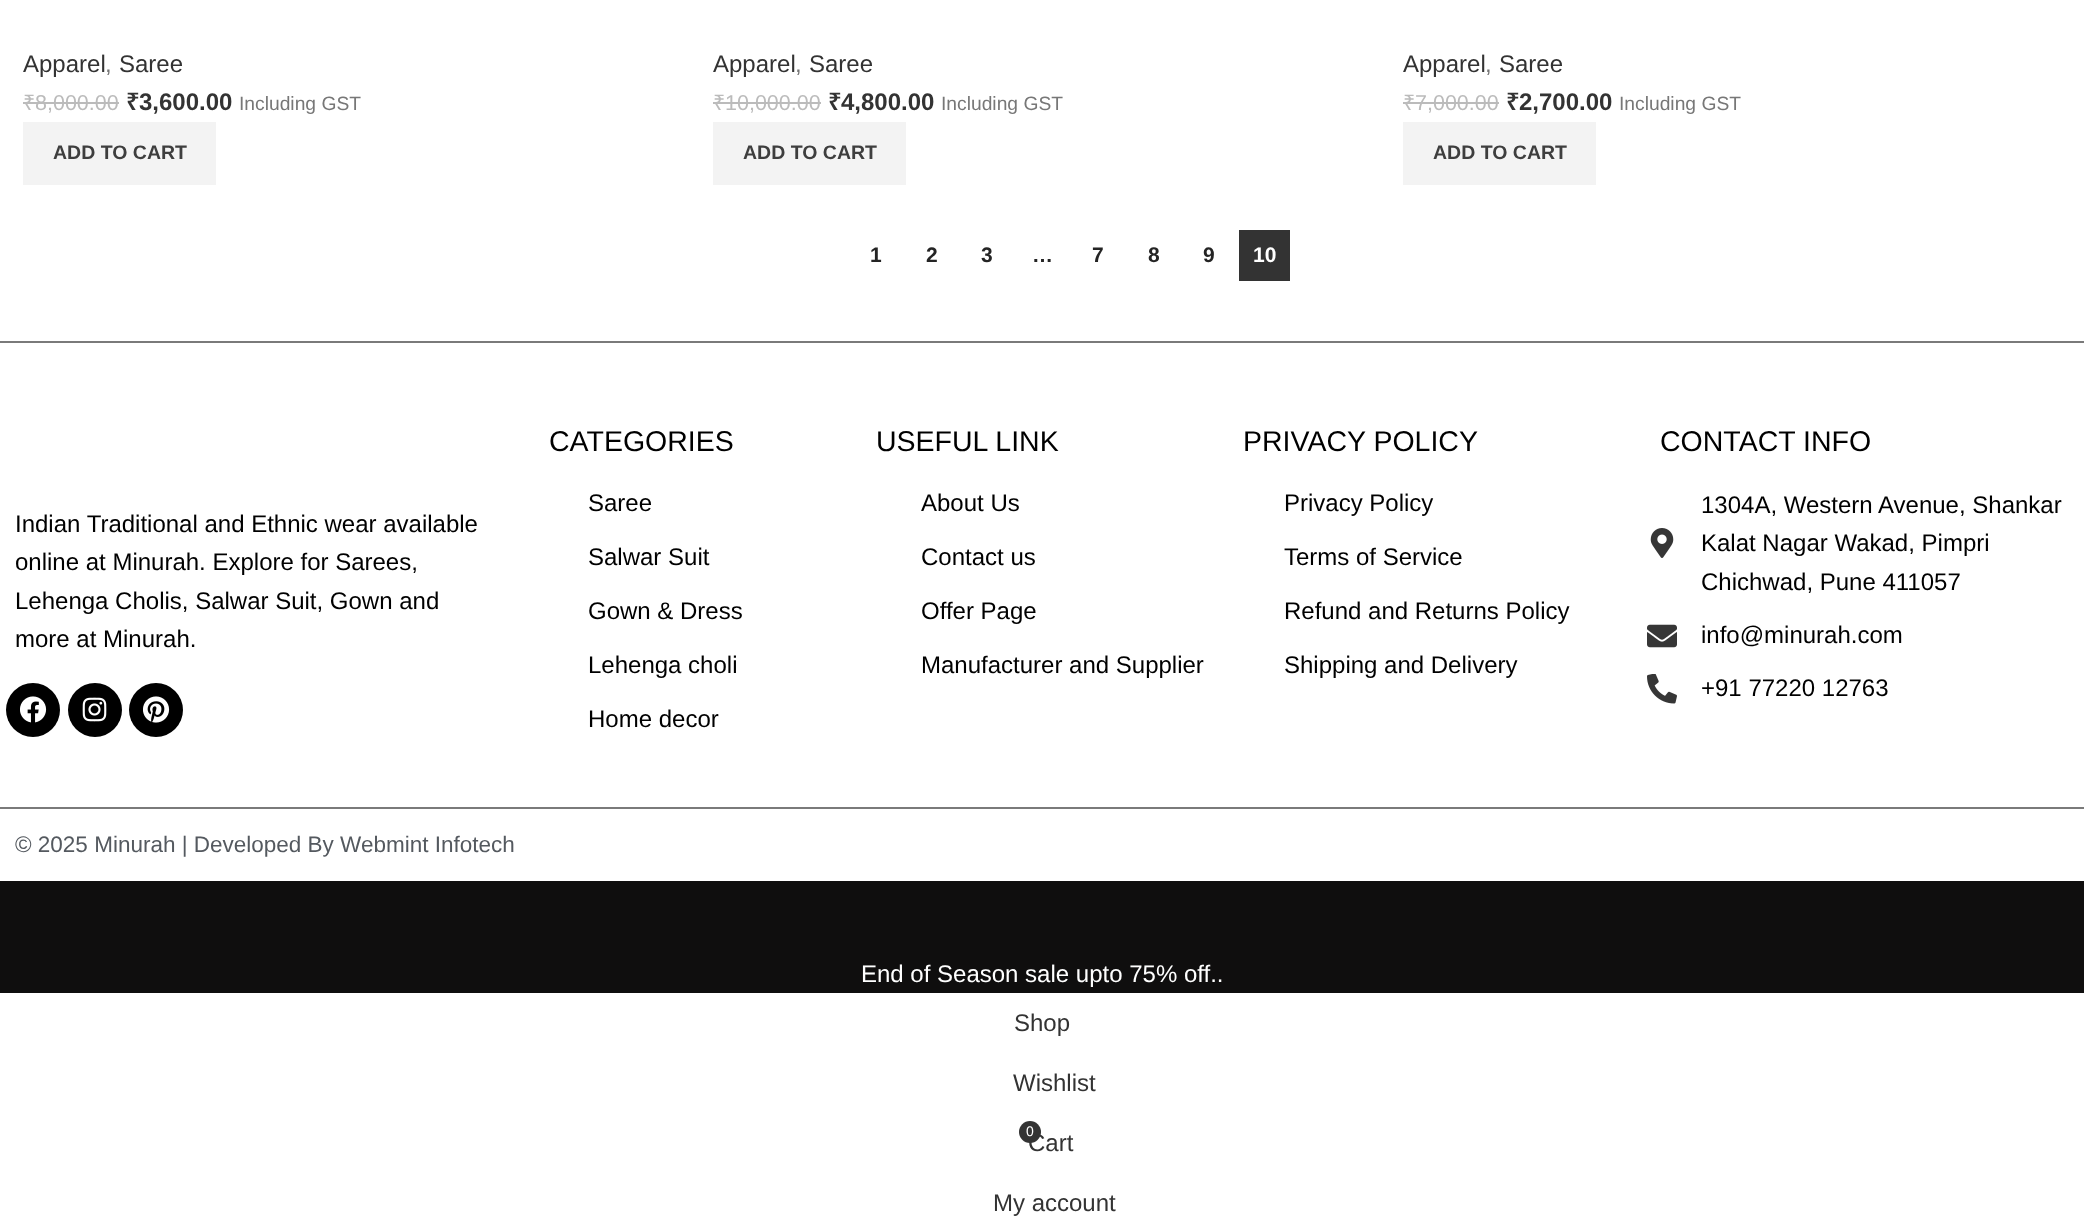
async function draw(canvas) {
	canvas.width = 2084;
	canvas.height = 1229;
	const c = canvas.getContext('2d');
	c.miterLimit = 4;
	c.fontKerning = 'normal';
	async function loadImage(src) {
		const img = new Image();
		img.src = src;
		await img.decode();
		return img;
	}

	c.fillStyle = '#fff';
	c.fillRect(0, 0, 2084, 1229);
	c.font = '24px Liberation Sans';
	c.fillStyle = '#333';
	c.fillText('Apparel', 23, 72);
	c.fillStyle = '#777';
	c.fillText(',', 105, 72);
	c.fillStyle = '#333';
	c.fillText('Saree', 119, 72);
	c.font = '21.5px Noto Sans';
	c.fillStyle = '#bbb';
	c.fillText('₹', 23, 110);
	c.font = '21.5px Liberation Sans';
	c.fillText('8,000.00', 35, 110);
	c.fillRect(23, 102, 12, 2);
	c.fillRect(35, 102, 84, 2);
	c.font = '600 24px Noto Sans';
	c.fillStyle = '#333';
	c.fillText('₹', 126, 110);
	c.font = 'bold 24px Liberation Sans';
	c.fillText('3,600.00', 139, 110);
	c.font = '19.25px Liberation Sans';
	c.fillStyle = '#777';
	c.fillText('Including GST', 239, 110);
	c.fillStyle = '#f3f3f3';
	c.fillRect(23, 122, 193, 63);
	c.font = 'bold 19.5px Liberation Sans';
	c.fillStyle = '#3e3e3e';
	c.fillText('ADD TO CART', 53, 159);
	c.font = '24px Liberation Sans';
	c.fillStyle = '#333';
	c.fillText('Apparel', 713, 72);
	c.fillStyle = '#777';
	c.fillText(',', 795, 72);
	c.fillStyle = '#333';
	c.fillText('Saree', 809, 72);
	c.font = '21.5px Noto Sans';
	c.fillStyle = '#bbb';
	c.fillText('₹', 713, 110);
	c.fillRect(713, 102, 12, 2);
	c.font = '21.5px Liberation Sans';
	c.fillText('10,000.00', 725, 110);
	c.fillRect(725, 102, 96, 2);
	c.font = '600 24px Noto Sans';
	c.fillStyle = '#333';
	c.fillText('₹', 828, 110);
	c.font = 'bold 24px Liberation Sans';
	c.fillText('4,800.00', 841, 110);
	c.font = '19.25px Liberation Sans';
	c.fillStyle = '#777';
	c.fillText('Including GST', 941, 110);
	c.fillStyle = '#f3f3f3';
	c.fillRect(713, 122, 193, 63);
	c.font = 'bold 19.5px Liberation Sans';
	c.fillStyle = '#3e3e3e';
	c.fillText('ADD TO CART', 743, 159);
	c.font = '24px Liberation Sans';
	c.fillStyle = '#333';
	c.fillText('Apparel', 1403, 72);
	c.fillStyle = '#777';
	c.fillText(',', 1485, 72);
	c.fillStyle = '#333';
	c.fillText('Saree', 1499, 72);
	c.font = '21.5px Noto Sans';
	c.fillStyle = '#bbb';
	c.fillText('₹', 1403, 110);
	c.font = '21.5px Liberation Sans';
	c.fillText('7,000.00', 1415, 110);
	c.fillRect(1403, 102, 12, 2);
	c.fillRect(1415, 102, 84, 2);
	c.font = '600 24px Noto Sans';
	c.fillStyle = '#333';
	c.fillText('₹', 1506, 110);
	c.font = 'bold 24px Liberation Sans';
	c.fillText('2,700.00', 1519, 110);
	c.font = '19.25px Liberation Sans';
	c.fillStyle = '#777';
	c.fillText('Including GST', 1619, 110);
	c.fillStyle = '#f3f3f3';
	c.fillRect(1403, 122, 193, 63);
	c.font = 'bold 19.5px Liberation Sans';
	c.fillStyle = '#3e3e3e';
	c.fillText('ADD TO CART', 1433, 159);
	c.font = 'bold 21px Liberation Sans';
	c.fillStyle = '#242424';
	for (const [text, x, y] of [
		['1', 870, 262],
		['2', 926, 262],
		['3', 981, 262],
		['…', 1032, 262],
		['7', 1092, 262],
		['8', 1148, 262],
		['9', 1203, 262],
	]) {
		c.fillText(text, x, y);
	}
	c.fillStyle = '#333';
	c.fillRect(1239, 230, 51, 51);
	c.fillStyle = '#fff';
	c.fillText('10', 1253, 262);
	c.fillStyle = '#7a7a7a';
	c.fillRect(0, 341, 2084, 2);
	c.font = '24px Liberation Sans';
	c.fillStyle = '#000';
	for (const [text, x, y] of [
		['Indian Traditional and Ethnic wear available', 15, 532],
		['online at Minurah. Explore for Sarees,', 15, 570],
		['Lehenga Cholis, Salwar Suit, Gown and', 15, 609],
		['more at Minurah.', 15, 647],
	]) {
		c.fillText(text, x, y);
	}
	c.beginPath();
	c.arc(33, 710, 27, 0, 2 * Math.PI);
	c.fill();
	c.drawImage(await loadImage('img1.png'), 20, 696, 27, 27);
	c.beginPath();
	c.arc(95, 710, 27, 0, 2 * Math.PI);
	c.fill();
	c.drawImage(await loadImage('img2.png'), 82, 697, 25, 25);
	c.beginPath();
	c.arc(156, 710, 27, 0, 2 * Math.PI);
	c.fill();
	c.drawImage(await loadImage('img3.png'), 143, 696, 27, 27);
	c.font = '28.5px Liberation Sans';
	c.fillText('CATEGORIES', 549, 451);
	c.font = '24px Liberation Sans';
	for (const [text, x, y] of [
		['Saree', 588, 511],
		['Salwar Suit', 588, 565],
		['Gown & Dress', 588, 619],
		['Lehenga choli', 588, 673],
		['Home decor', 588, 727],
	]) {
		c.fillText(text, x, y);
	}
	c.font = '28.5px Liberation Sans';
	c.fillText('USEFUL LINK', 876, 451);
	c.font = '24px Liberation Sans';
	for (const [text, x, y] of [
		['About Us', 921, 511],
		['Contact us', 921, 565],
		['Offer Page', 921, 619],
		['Manufacturer and Supplier', 921, 673],
	]) {
		c.fillText(text, x, y);
	}
	c.font = '28.5px Liberation Sans';
	c.fillText('PRIVACY POLICY', 1243, 451);
	c.font = '24px Liberation Sans';
	for (const [text, x, y] of [
		['Privacy Policy', 1284, 511],
		['Terms of Service', 1284, 565],
		['Refund and Returns Policy', 1284, 619],
		['Shipping and Delivery', 1284, 673],
	]) {
		c.fillText(text, x, y);
	}
	c.font = '28.5px Liberation Sans';
	c.fillText('CONTACT INFO', 1660, 451);
	c.drawImage(await loadImage('img4.png'), 1650, 528, 24, 30);
	c.font = '24px Liberation Sans';
	for (const [text, x, y] of [
		['1304A, Western Avenue, Shankar', 1701, 513],
		['Kalat Nagar Wakad, Pimpri', 1701, 551],
		['Chichwad, Pune 411057', 1701, 590],
	]) {
		c.fillText(text, x, y);
	}
	c.drawImage(await loadImage('img5.png'), 1647, 624, 30, 24);
	c.fillText('info@minurah.com', 1701, 643);
	c.drawImage(await loadImage('img6.png'), 1647, 674, 30, 30);
	c.fillText('+91 77220 12763', 1701, 696);
	c.fillStyle = '#7a7a7a';
	c.fillRect(0, 807, 2084, 2);
	c.font = '22.5px Liberation Sans';
	c.fillStyle = '#54595f';
	c.fillText('© 2025 Minurah | Developed By Webmint Infotech', 15, 852);
	c.fillStyle = '#0f0e0e';
	c.fillRect(0, 881, 2084, 112);
	c.font = '24px Liberation Sans';
	c.fillStyle = '#fff';
	c.fillText('End of Season sale upto 75% off..', 861, 982);
	c.fillStyle = '#333';
	c.fillText('Shop', 1014, 1031);
	c.fillText('Wishlist', 1013, 1091);
	c.beginPath();
	c.arc(1030, 1132, 11, 0, 2 * Math.PI);
	c.fill();
	c.font = '14px Liberation Sans';
	c.fillStyle = '#fff';
	c.fillText('0', 1026, 1136);
	c.font = '24px Liberation Sans';
	c.fillStyle = '#333';
	c.fillText('Cart', 1028, 1151);
	c.fillText('My account', 993, 1211);
}

draw(document.querySelector('canvas'));
